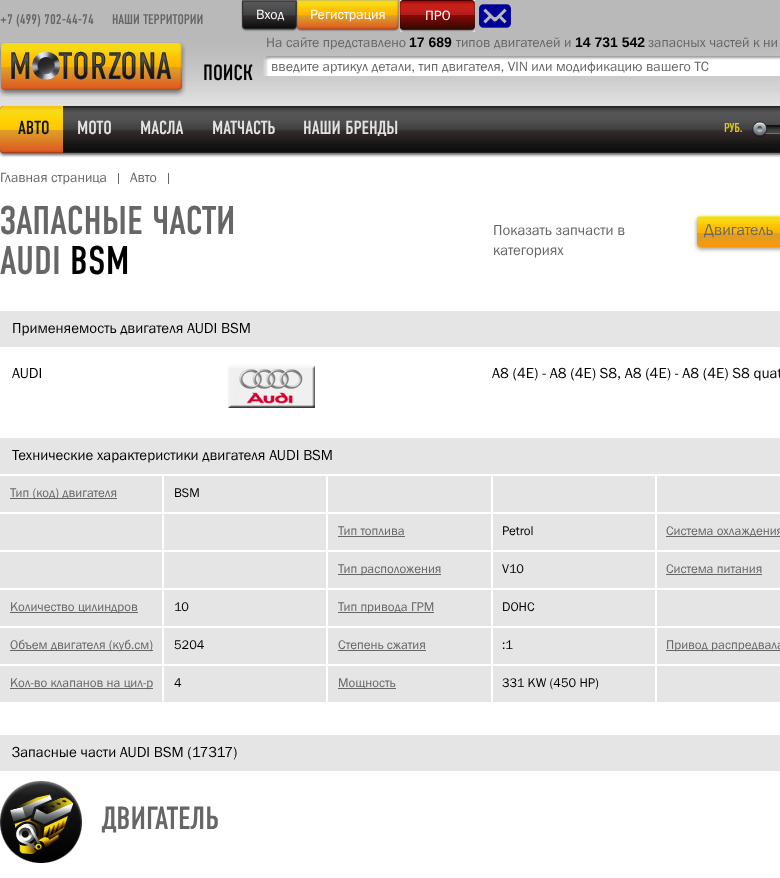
async function draw(canvas) {
	canvas.width = 780;
	canvas.height = 878;
	const c = canvas.getContext('2d');
	c.miterLimit = 4;
	c.fontKerning = 'normal';
	async function loadImage(src) {
		const img = new Image();
		img.src = src;
		await img.decode();
		return img;
	}

	c.fillStyle = '#fff';
	c.fillRect(0, 0, 780, 878);
	c.drawImage(await loadImage('img1.png'), 0, 0, 780, 110);
	c.font = '14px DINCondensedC';
	c.fillStyle = '#666';
	c.fillText('+7 (499) 702-44-74', 0, 24);
	c.fillText('НАШИ ТЕРРИТОРИИ', 112, 24);
	c.drawImage(await loadImage('img3.png'), 296, 0, 104, 32);
	c.drawImage(await loadImage('img2.png'), 241, 0, 57, 32);
	c.font = '14px Franklin Gothic';
	c.fillStyle = '#fff';
	c.fillText('Вход', 256, 19);
	c.fillText('Регистрация', 310, 19);
	c.drawImage(await loadImage('img4.png'), 400, 0, 75, 32);
	c.fillText('ПРО', 425, 20);
	c.drawImage(await loadImage('img5.png'), 479, 4, 32, 24);
	c.drawImage(await loadImage('img6.png'), 0, 42, 186, 55);
	c.font = '22px DINCondensedC';
	c.fillStyle = '#000';
	c.fillText('ПОИСК', 203, 80);
	c.font = '14px Franklin Gothic';
	c.fillStyle = '#666';
	c.fillText('На сайте представлено', 266, 47);
	c.font = 'bold 14px Liberation Sans';
	c.fillStyle = '#000';
	c.fillText('17 689', 409, 47);
	c.font = '14px Franklin Gothic';
	c.fillStyle = '#666';
	c.fillText('типов двигателей и', 456, 47);
	c.font = 'bold 14px Liberation Sans';
	c.fillStyle = '#000';
	c.fillText('14 731 542', 575, 47);
	c.font = '14px Franklin Gothic';
	c.fillStyle = '#666';
	c.fillText('запасных частей к ни', 648, 47);
	c.drawImage(await loadImage('img7.png'), 263, 56, 517, 20);
	c.fillText('введите артикул детали, тип двигателя, VIN или модификацию вашего ТС', 271, 71);
	c.fillStyle = '#606060';
	c.filter = 'blur(1.5px)';
	c.beginPath();
	c.roundRect(0, 108, 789, 47, 4);
	c.fill();
	c.filter = 'none';
	c.drawImage(await loadImage('img8.png'), 0, 106, 780, 47);
	c.drawImage(await loadImage('img9.png'), 0, 106, 63, 47);
	c.font = '19px DINCondensedC';
	c.fillStyle = '#141414';
	c.fillText('АВТО', 18, 134);
	c.fillStyle = '#e3e3e3';
	for (const [text, x, y] of [
		['МОТО', 77, 134],
		['МАСЛА', 140, 134],
		['МАТЧАСТЬ', 212, 134],
		['НАШИ БРЕНДЫ', 303, 134],
	]) {
		c.fillText(text, x, y);
	}
	c.font = '13px DINCondensedC';
	c.fillStyle = '#e0c90a';
	c.fillText('РУБ.', 724, 132);
	c.drawImage(await loadImage('img10.png'), 752, 121, 28, 16);
	c.fillStyle = '#666';
	c.fillRect(118, 173, 1, 11);
	c.font = '14px Franklin Gothic';
	c.fillText('Главная страница', 0, 182);
	c.fillRect(168, 173, 1, 11);
	c.fillText('Авто', 130, 182);
	c.font = '40px DINCondensedC';
	c.fillText('ЗАПАСНЫЕ ЧАСТИ', 0, 234);
	c.fillText('AUDI', 0, 274);
	c.fillStyle = '#000';
	c.fillText('BSM', 70, 274);
	c.font = '15px Franklin Gothic';
	c.fillStyle = '#666';
	c.fillText('Показать запчасти в', 493, 235);
	c.fillText('категориях', 493, 255);
	c.fillStyle = '#939393';
	c.filter = 'blur(2px)';
	c.beginPath();
	c.roundRect(697, 218, 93, 31, 4);
	c.fill();
	c.filter = 'none';
	c.drawImage(await loadImage('img11.png'), 697, 216, 83, 31);
	c.font = '16px Franklin Gothic';
	c.fillStyle = '#666';
	c.fillText('Двигатель', 704, 235);
	c.fillStyle = '#e5e5e5';
	c.fillRect(0, 311, 780, 36);
	c.font = '15px Franklin Gothic';
	c.fillStyle = '#000';
	c.fillText('Применяемость двигателя AUDI BSM', 12, 333);
	c.fillText('AUDI', 12, 378);
	c.drawImage(await loadImage('img12.png'), 228, 365, 87, 43);
	c.fillText('A8 (4E) - A8 (4E) S8, A8 (4E) - A8 (4E) S8 quat', 492, 378);
	c.fillStyle = '#e5e5e5';
	c.fillRect(0, 438, 780, 36);
	c.fillStyle = '#000';
	c.fillText('Технические характеристики двигателя AUDI BSM', 12, 460);
	c.drawImage(await loadImage('img13.png'), 0, 476, 780, 36);
	c.fillStyle = '#666';
	c.fillRect(10, 498, 107, 1);
	c.font = '13px Franklin Gothic';
	c.fillText('Тип (код) двигателя', 10, 497);
	c.fillStyle = '#000';
	c.fillText('BSM', 174, 497);
	c.drawImage(await loadImage('img13.png'), 0, 514, 780, 36);
	c.fillStyle = '#666';
	c.fillText('Тип топлива', 338, 535);
	c.fillRect(338, 536, 67, 1);
	c.fillStyle = '#000';
	c.fillText('Petrol', 502, 535);
	c.fillStyle = '#666';
	c.fillRect(666, 536, 114, 1);
	c.fillText('Система охлаждения', 666, 535);
	c.drawImage(await loadImage('img13.png'), 0, 552, 780, 36);
	c.fillRect(338, 574, 103, 1);
	c.fillText('Тип расположения', 338, 573);
	c.fillStyle = '#000';
	c.fillText('V10', 502, 573);
	c.fillStyle = '#666';
	c.fillText('Система питания', 666, 573);
	c.fillRect(666, 574, 96, 1);
	c.drawImage(await loadImage('img13.png'), 0, 590, 780, 36);
	c.fillRect(10, 612, 128, 1);
	c.fillText('Количество цилиндров', 10, 611);
	c.fillStyle = '#000';
	c.fillText('10', 174, 611);
	c.fillStyle = '#666';
	c.fillRect(338, 612, 96, 1);
	c.fillText('Тип привода ГРМ', 338, 611);
	c.fillStyle = '#000';
	c.fillText('DOHC', 502, 611);
	c.drawImage(await loadImage('img13.png'), 0, 628, 780, 36);
	c.fillStyle = '#666';
	c.fillRect(10, 650, 143, 1);
	c.fillText('Объем двигателя (куб.см)', 10, 649);
	c.fillStyle = '#000';
	c.fillText('5204', 174, 649);
	c.fillStyle = '#666';
	c.fillText('Степень сжатия', 338, 649);
	c.fillRect(338, 650, 88, 1);
	c.fillStyle = '#000';
	c.fillText(':1', 502, 649);
	c.fillStyle = '#666';
	c.fillRect(666, 650, 114, 1);
	c.fillText('Привод распредвала', 666, 649);
	c.drawImage(await loadImage('img13.png'), 0, 666, 780, 36);
	c.fillRect(10, 688, 143, 1);
	c.fillText('Кол-во клапанов на цил-р', 10, 687);
	c.fillStyle = '#000';
	c.fillText('4', 174, 687);
	c.fillStyle = '#666';
	c.fillRect(338, 688, 58, 1);
	c.fillText('Мощность', 338, 687);
	c.fillStyle = '#000';
	c.fillText('331 KW (450 HP)', 502, 687);
	c.fillStyle = '#e5e5e5';
	c.fillRect(0, 735, 780, 36);
	c.font = '15px Franklin Gothic';
	c.fillStyle = '#000';
	c.fillText('Запасные части AUDI BSM (17317)', 12, 757);
	c.drawImage(await loadImage('img14.png'), 0, 781, 82, 82);
	c.font = '32px DINCondensedC';
	c.fillStyle = '#666';
	c.fillText('ДВИГАТЕЛЬ', 102, 829);
}

draw(document.querySelector('canvas'));
